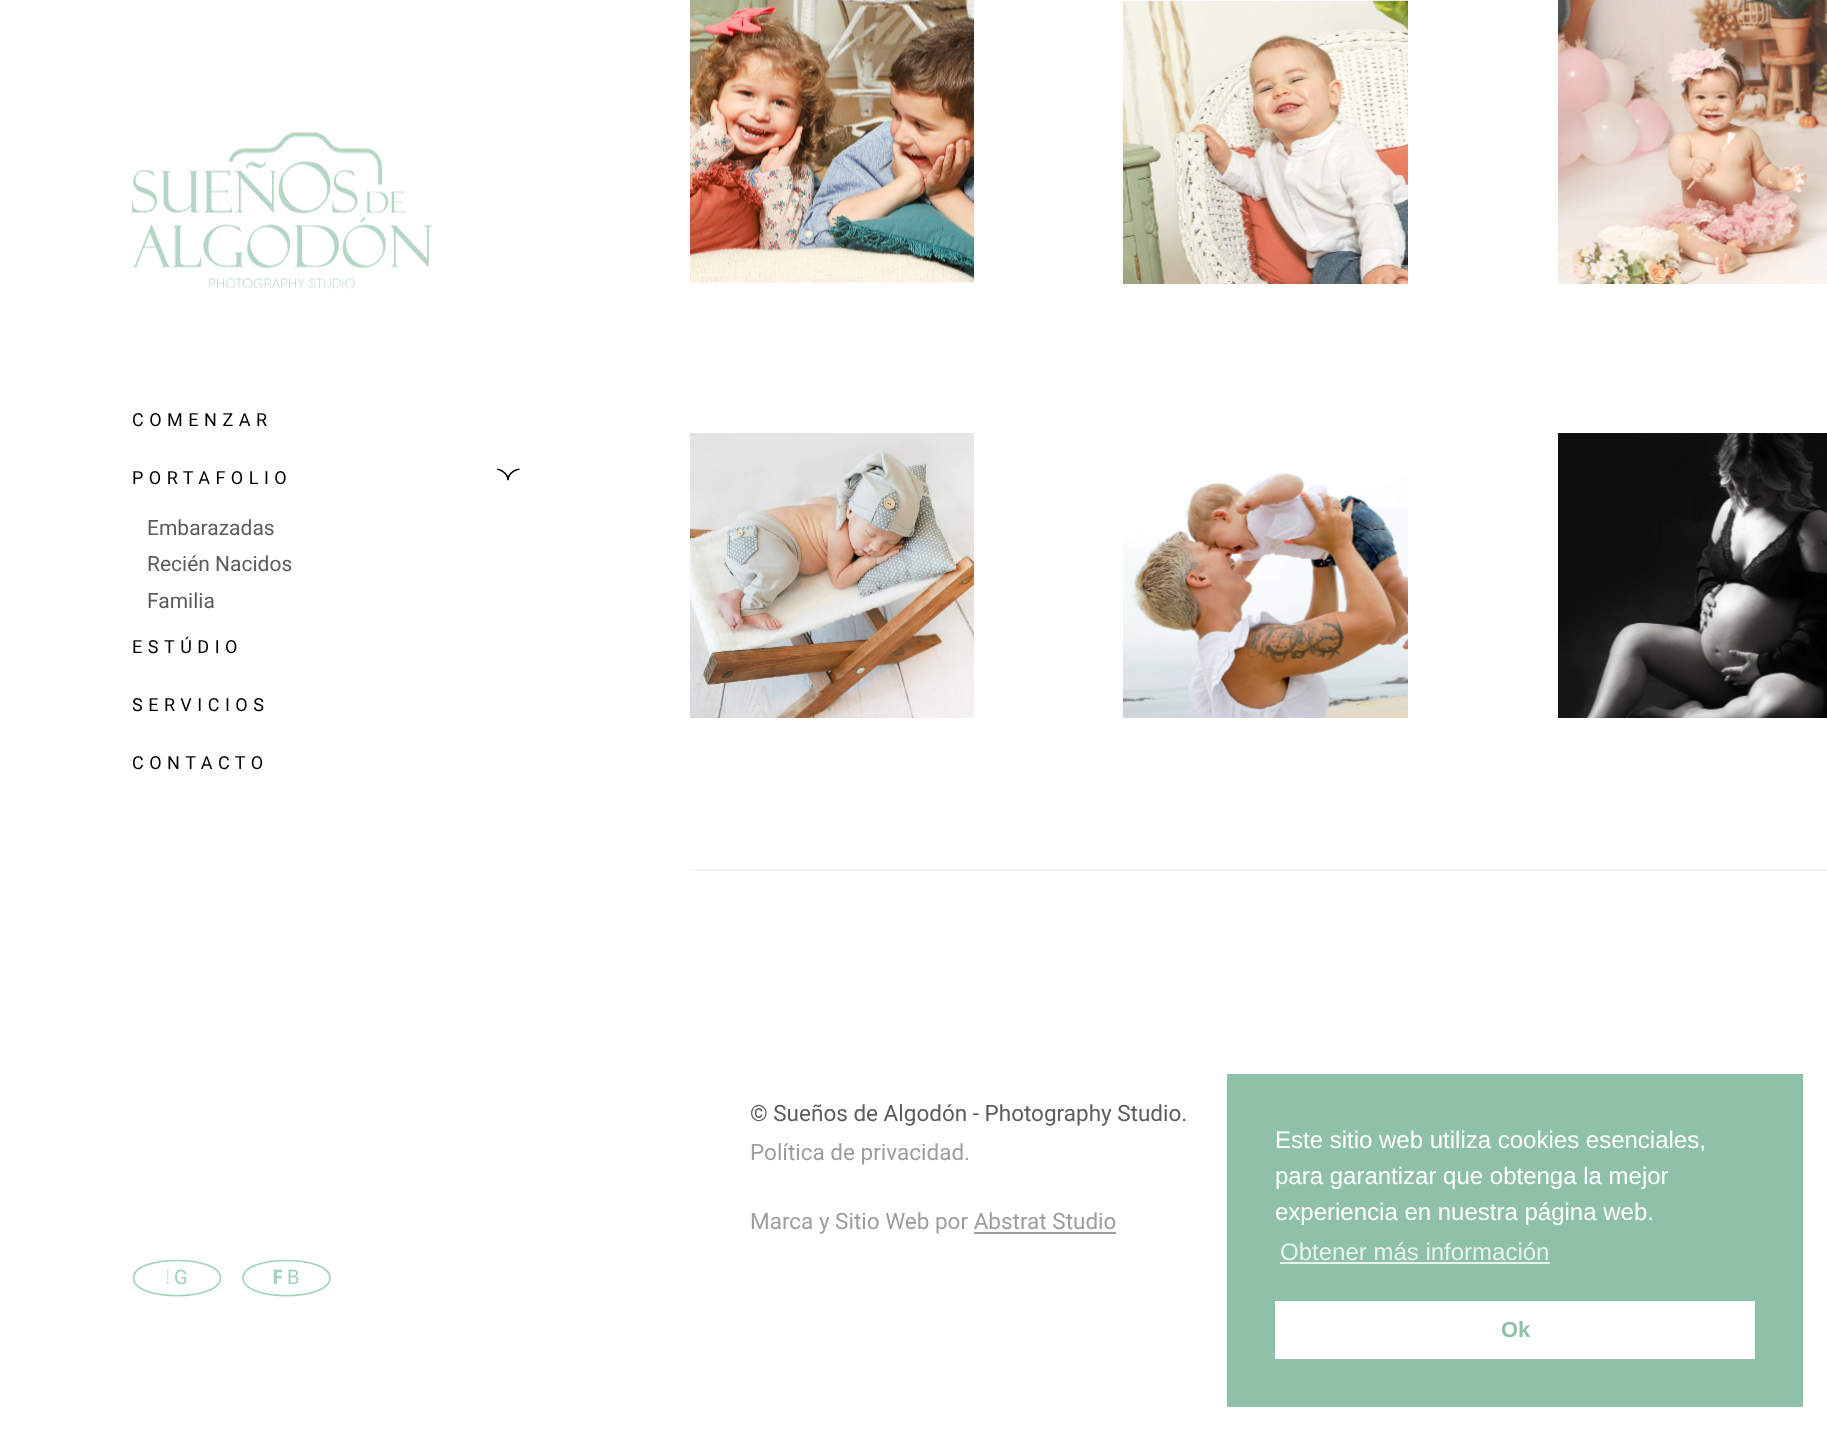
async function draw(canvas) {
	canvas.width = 1827;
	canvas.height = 1430;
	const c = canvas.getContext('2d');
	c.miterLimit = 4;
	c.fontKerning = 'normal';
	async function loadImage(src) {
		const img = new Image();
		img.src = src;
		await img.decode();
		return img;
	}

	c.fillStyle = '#fff';
	c.fillRect(0, 0, 1827, 1430);
	c.drawImage(await loadImage('img1.png'), 132, 132, 300, 157);
	c.letterSpacing = '5.5px';
	c.font = '18px Roboto';
	c.fillStyle = '#000';
	c.fillText('COMENZAR', 132, 426);
	c.fillText('PORTAFOLIO', 132, 484);
	c.save();
	c.beginPath();
	c.moveTo(520, 468.5);
	c.lineTo(520, 480.5);
	c.lineTo(497, 480.5);
	c.lineTo(497, 468.5);
	c.closePath();
	c.clip();
	c.beginPath();
	c.moveTo(519.5, 469);
	c.bezierCurveTo(519.5, 469, 508, 471, 508, 480.5);
	c.moveTo(496.5, 469);
	c.bezierCurveTo(496.5, 469, 508, 471, 508, 480.5);
	c.strokeStyle = '#000';
	c.lineWidth = 1.5;
	c.stroke();
	c.restore();
	c.letterSpacing = '0px';
	c.font = '21px Roboto';
	c.fillStyle = '#5c5c5c';
	for (const [text, x, y] of [
		['Embarazadas', 147, 535],
		['Recién Nacidos', 147, 571],
		['Familia', 147, 608],
	]) {
		c.fillText(text, x, y);
	}
	c.letterSpacing = '5.5px';
	c.font = '18px Roboto';
	c.fillStyle = '#000';
	for (const [text, x, y] of [
		['ESTÚDIO', 132, 653],
		['SERVICIOS', 132, 711],
		['CONTACTO', 132, 769],
	]) {
		c.fillText(text, x, y);
	}
	c.beginPath();
	c.moveTo(133.5, 1278);
	c.bezierCurveTo(133.5, 1301.5, 220.5, 1301.5, 220.5, 1278);
	c.bezierCurveTo(220.5, 1254.5, 133.5, 1254.5, 133.5, 1278);
	c.strokeStyle = '#a1d1b9';
	c.lineWidth = 1.5;
	c.stroke();
	c.letterSpacing = '4px';
	c.font = '100 20px Noto Sans';
	c.fillStyle = '#a1d1b9';
	c.fillText('I', 165, 1284);
	c.letterSpacing = '0px';
	c.font = '20px Roboto';
	c.fillText('G', 174, 1284);
	c.beginPath();
	c.moveTo(243, 1278);
	c.bezierCurveTo(243, 1301.5, 330, 1301.5, 330, 1278);
	c.bezierCurveTo(330, 1254.5, 243, 1254.5, 243, 1278);
	c.stroke();
	c.letterSpacing = '4px';
	c.font = 'bold 20px Noto Sans';
	c.fillText('F', 272, 1284);
	c.letterSpacing = '0px';
	c.font = '20px Roboto';
	c.fillText('B', 287, 1284);
	c.drawImage(await loadImage('img2.png'), 690, 0, 284, 284);
	c.drawImage(await loadImage('img3.png'), 1123, 0, 285, 284);
	c.drawImage(await loadImage('img4.png'), 1558, 0, 269, 284);
	c.drawImage(await loadImage('img5.png'), 690, 433, 284, 285);
	c.drawImage(await loadImage('img6.png'), 1123, 473, 285, 245);
	c.drawImage(await loadImage('img7.png'), 1558, 433, 269, 285);
	c.fillStyle = '#f4f4f4';
	c.fillRect(690, 869, 1137, 2);
	c.font = '22.5px Roboto';
	c.fillStyle = '#5c5c5c';
	c.fillText('© Sueños de Algodón - Photography Studio.', 750, 1121);
	c.fillStyle = '#9d9d9d';
	c.fillText('Política de privacidad.', 750, 1160);
	c.fillText('Marca y Sitio Web por Abstrat Studio', 750, 1229);
	c.fillRect(974, 1232, 142, 2);
	c.fillStyle = '#8ec1a7';
	c.fillRect(1227, 1074, 576, 333);
	c.font = '24px Liberation Sans';
	c.fillStyle = '#fff';
	for (const [text, x, y] of [
		['Este sitio web utiliza cookies esenciales,', 1275, 1148],
		['para garantizar que obtenga la mejor', 1275, 1184],
		['experiencia en nuestra página web.', 1275, 1220],
	]) {
		c.fillText(text, x, y);
	}
	c.fillStyle = '#e8f3ed';
	c.fillText('Obtener más información', 1280, 1260);
	c.fillRect(1280, 1262, 270, 2);
	c.fillStyle = '#fff';
	c.fillRect(1275, 1301, 480, 58);
	c.font = 'bold 22px Liberation Sans';
	c.fillStyle = '#8ec1a7';
	c.fillText('Ok', 1501, 1337);
}

draw(document.querySelector('canvas'));
